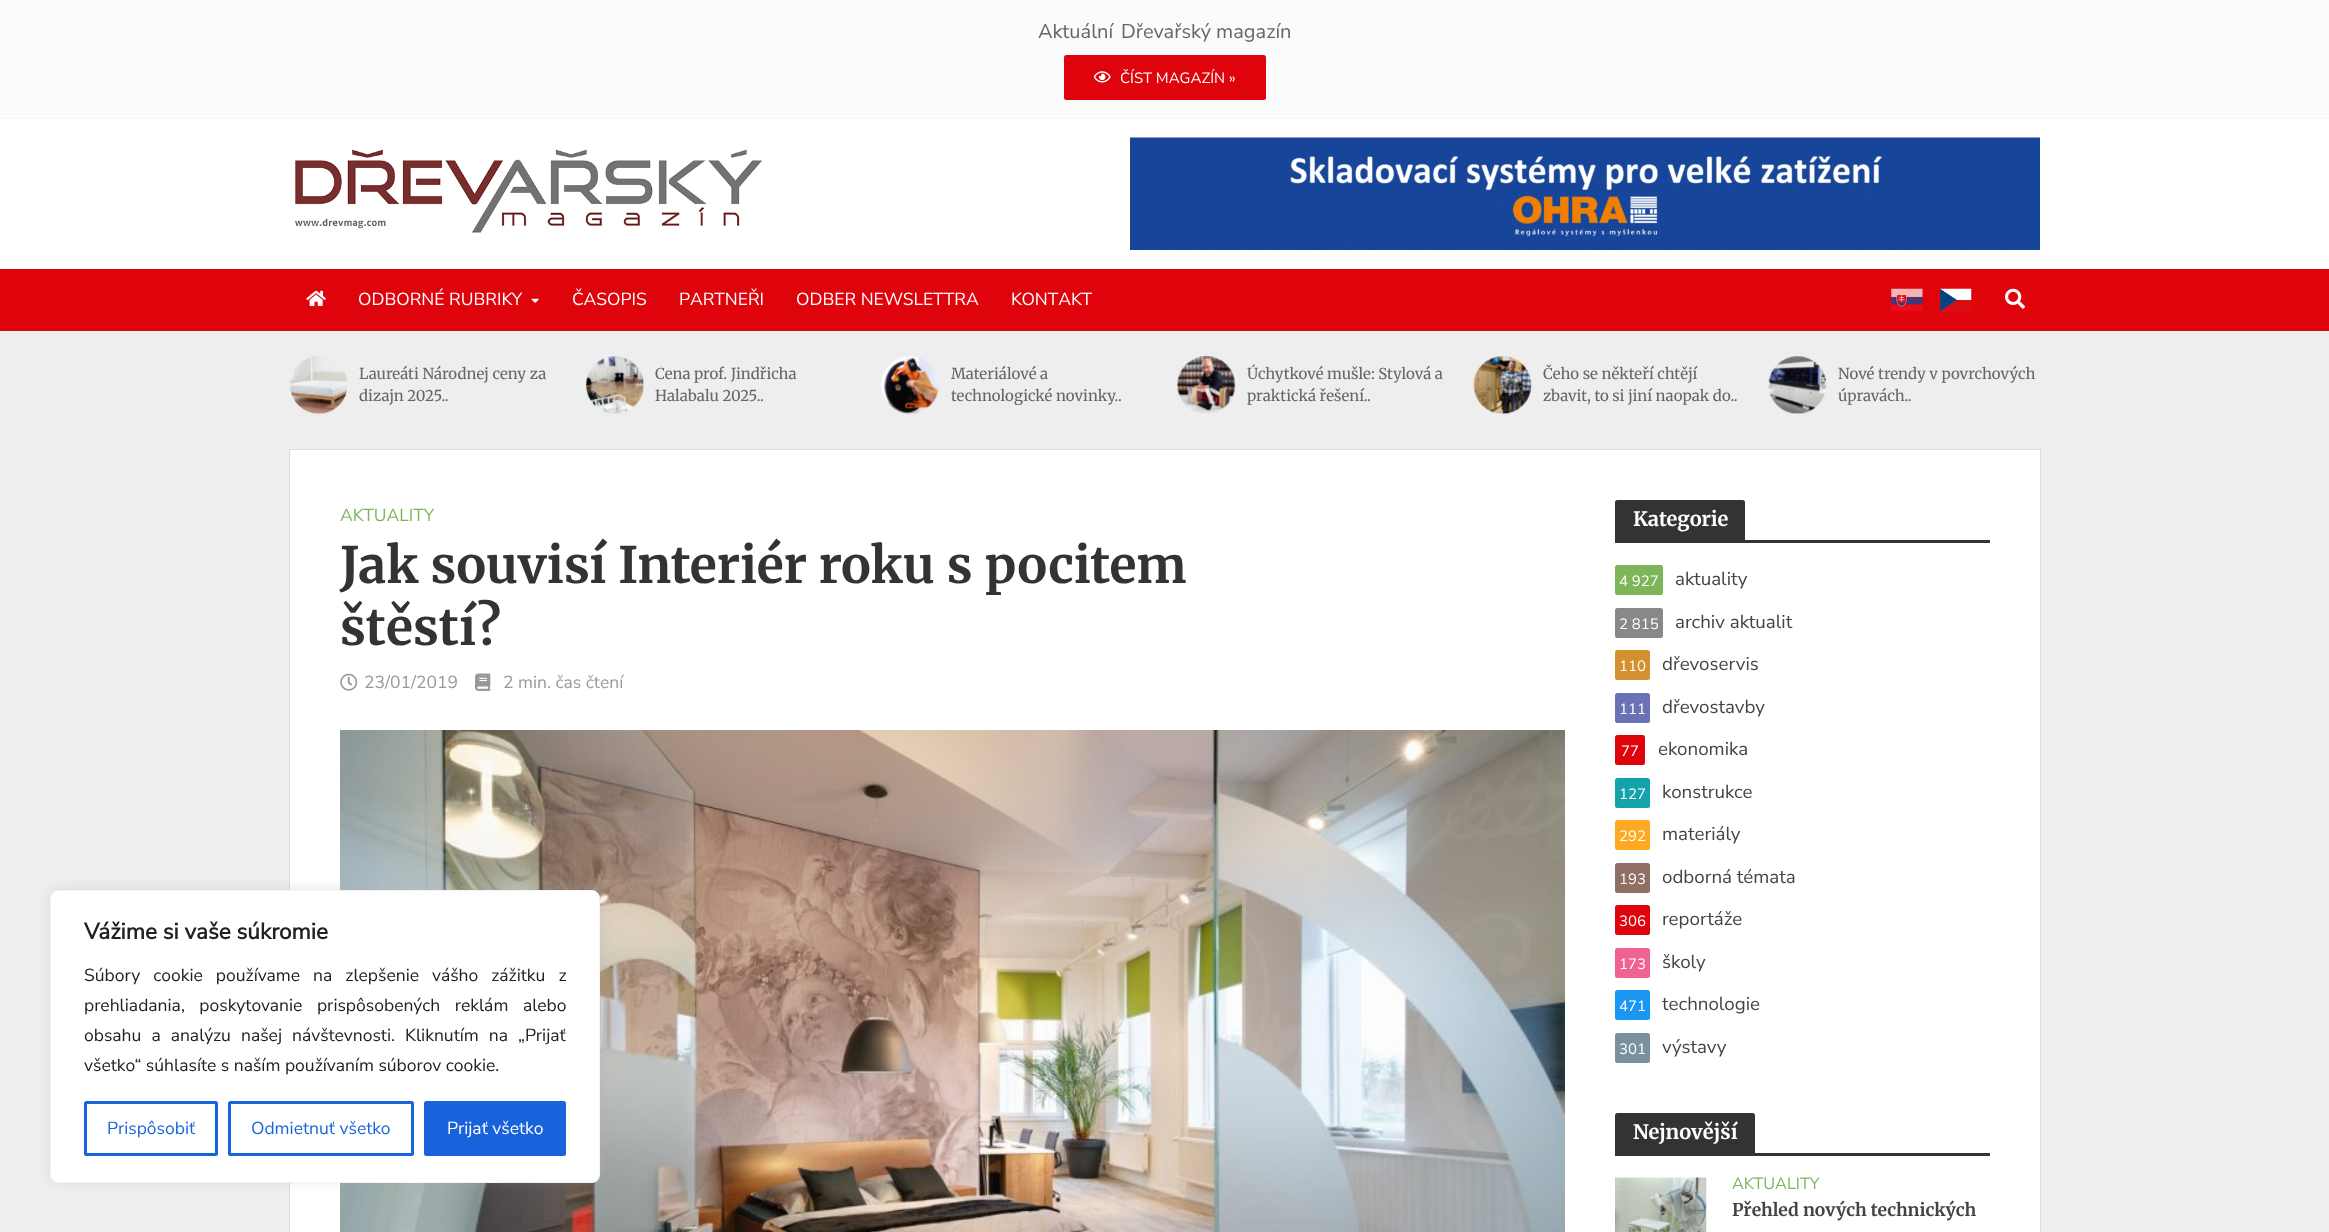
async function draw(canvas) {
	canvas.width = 2329;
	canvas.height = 1232;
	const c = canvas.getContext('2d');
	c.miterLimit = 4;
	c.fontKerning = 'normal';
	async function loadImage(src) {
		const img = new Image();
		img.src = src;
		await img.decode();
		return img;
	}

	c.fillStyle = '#eee';
	c.fillRect(0, 0, 2329, 1232);
	c.fillStyle = '#fbfbfb';
	c.fillRect(0, 0, 2329, 118);
	c.fillStyle = '#f5f5f5';
	c.fillRect(0, 118, 2329, 1);
	c.font = '200 20px Nunito Sans';
	c.fillStyle = '#666';
	c.fillText('Aktuální', 1038, 38);
	c.fillText('Dřevařský magazín', 1121, 38);
	c.fillStyle = '#df040c';
	c.beginPath();
	c.roundRect(1064, 55, 202, 45, 2.5);
	c.fill();
	c.drawImage(await loadImage('img1.png'), 1093, 71, 18, 12);
	c.font = '200 15px Nunito Sans';
	c.fillStyle = '#fff';
	c.fillText('ČÍST MAGAZÍN »', 1120, 83);
	c.fillRect(0, 119, 2329, 150);
	c.drawImage(await loadImage('img2.png'), 295, 149, 468, 84);
	c.drawImage(await loadImage('img3.png'), 1130, 137, 910, 113);
	c.fillStyle = '#df040c';
	c.fillRect(0, 269, 2329, 62);
	c.drawImage(await loadImage('img4.png'), 306, 290, 20, 17);
	c.font = '200 17.5px Nunito Sans';
	c.fillStyle = '#fff';
	c.fillText('ODBORNÉ RUBRIKY', 358, 305);
	c.drawImage(await loadImage('img5.png'), 531, 298, 8, 5);
	for (const [text, x, y] of [
		['ČASOPIS', 572, 305],
		['PARTNEŘI', 679, 305],
		['ODBER NEWSLETTRA', 796, 305],
		['KONTAKT', 1011, 305],
	]) {
		c.fillText(text, x, y);
	}
	c.drawImage(await loadImage('img6.png'), 1891, 288, 32, 23);
	c.drawImage(await loadImage('img7.png'), 1940, 288, 32, 24);
	c.drawImage(await loadImage('img8.png'), 2005, 288, 20, 21);
	c.drawImage(await loadImage('img9.png'), 290, 356, 57, 59);
	c.font = '15px Merriweather';
	c.fillStyle = '#666';
	c.fillText('Laureáti Národnej ceny za', 359, 379);
	c.fillText('dizajn 2025..', 359, 401);
	c.drawImage(await loadImage('img10.png'), 586, 356, 59, 58);
	c.fillText('Cena prof. Jindřicha', 655, 379);
	c.fillText('Halabalu 2025..', 655, 401);
	c.drawImage(await loadImage('img11.png'), 881, 356, 58, 59);
	c.fillText('Materiálové a', 951, 379);
	c.fillText('technologické novinky..', 951, 401);
	c.drawImage(await loadImage('img12.png'), 1177, 356, 59, 58);
	c.fillText('Úchytkové mušle: Stylová a', 1247, 379);
	c.fillText('praktická řešení..', 1247, 401);
	c.drawImage(await loadImage('img13.png'), 1473, 356, 59, 59);
	c.fillText('Čeho se někteří chtějí', 1543, 379);
	c.fillText('zbavit, to si jiní naopak do..', 1543, 401);
	c.drawImage(await loadImage('img14.png'), 1768, 356, 59, 59);
	c.fillText('Nové trendy v povrchových', 1838, 379);
	c.fillText('úpravách..', 1838, 401);
	c.strokeStyle = '#ddd';
	c.strokeRect(289.5, 449.5, 1751, 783);
	c.fillStyle = '#fff';
	c.fillRect(290, 450, 1750, 782);
	c.drawImage(await loadImage('img17.png'), 340, 730, 1225, 502);
	c.fillStyle = '#acabab4d';
	c.filter = 'blur(6px)';
	c.beginPath();
	c.roundRect(50, 889, 550, 292, 8);
	c.fill();
	c.filter = 'none';
	c.fillStyle = '#fff';
	c.beginPath();
	c.roundRect(50.5, 890.5, 549, 292, 7.5);
	c.fill();
	c.strokeStyle = '#f4f4f4';
	c.stroke();
	c.font = 'bold 22.5px Nunito Sans';
	c.fillStyle = '#212121';
	c.fillText('Vážime si vaše súkromie', 84, 939);
	c.wordSpacing = '8.5px';
	c.font = '200 17.5px Nunito Sans';
	c.fillText('Súbory cookie používame na zlepšenie vášho zážitku z', 84, 981);
	c.wordSpacing = '10px';
	c.fillText('prehliadania, poskytovanie prispôsobených reklám alebo', 84, 1011);
	c.wordSpacing = '5.5px';
	c.fillText('obsahu a analýzu našej návštevnosti. Kliknutím na „Prijať', 84, 1041);
	c.wordSpacing = '0px';
	c.fillText('všetko“ súhlasíte s naším používaním súborov cookie.', 84, 1071);
	c.beginPath();
	c.roundRect(85.5, 1102.5, 131, 52, 1);
	c.strokeStyle = '#1863dc';
	c.lineWidth = 3;
	c.stroke();
	c.fillStyle = '#1863dc';
	c.fillText('Prispôsobiť', 107, 1134);
	c.beginPath();
	c.roundRect(229.5, 1102.5, 183, 52, 1);
	c.stroke();
	c.fillText('Odmietnuť všetko', 251, 1134);
	c.beginPath();
	c.roundRect(425.5, 1102.5, 139, 52, 1);
	c.fill();
	c.stroke();
	c.fillStyle = '#fff';
	c.fillText('Prijať všetko', 447, 1134);
	c.fillStyle = '#7cb659';
	c.fillText('AKTUALITY', 340, 521);
	c.font = 'bold 50px Merriweather';
	c.fillStyle = '#333';
	c.fillText('Jak souvisí Interiér roku s pocitem', 340, 583);
	c.fillText('štěstí?', 340, 645);
	c.drawImage(await loadImage('img15.png'), 340, 673, 18, 18);
	c.font = '200 17.5px Nunito Sans';
	c.fillStyle = '#999';
	c.fillText('23/01/2019', 364, 688);
	c.drawImage(await loadImage('img16.png'), 475, 673, 16, 18);
	c.fillText('2 min. čas čtení', 503, 688);
	c.fillStyle = '#333';
	c.beginPath();
	c.roundRect(1615, 500, 130, 40, [2.5, 2.5, 0, 0]);
	c.fill();
	c.font = 'bold 20px Merriweather';
	c.fillStyle = '#fff';
	c.fillText('Kategorie', 1633, 526);
	c.fillStyle = '#333';
	c.fillRect(1615, 540, 375, 3);
	c.fillStyle = '#7cb659';
	c.beginPath();
	c.roundRect(1615, 565, 48, 30, 2.5);
	c.fill();
	c.font = '200 15px Nunito Sans';
	c.fillStyle = '#fff';
	c.fillText('4 927', 1619, 586);
	c.font = '200 18.75px Nunito Sans';
	c.fillStyle = '#444';
	c.fillText('aktuality', 1675, 585);
	c.fillStyle = '#888';
	c.beginPath();
	c.roundRect(1615, 608, 48, 30, 2.5);
	c.fill();
	c.font = '200 15px Nunito Sans';
	c.fillStyle = '#fff';
	c.fillText('2 815', 1619, 629);
	c.font = '200 18.75px Nunito Sans';
	c.fillStyle = '#444';
	c.fillText('archiv aktualit', 1675, 628);
	c.fillStyle = '#d4902f';
	c.beginPath();
	c.roundRect(1615, 650, 35, 30, 2.5);
	c.fill();
	c.font = '200 15px Nunito Sans';
	c.fillStyle = '#fff';
	c.fillText('110', 1619, 671);
	c.font = '200 18.75px Nunito Sans';
	c.fillStyle = '#444';
	c.fillText('dřevoservis', 1662, 670);
	c.fillStyle = '#6a71b4';
	c.beginPath();
	c.roundRect(1615, 693, 35, 30, 2.5);
	c.fill();
	c.font = '200 15px Nunito Sans';
	c.fillStyle = '#fff';
	c.fillText('111', 1619, 714);
	c.font = '200 18.75px Nunito Sans';
	c.fillStyle = '#444';
	c.fillText('dřevostavby', 1662, 713);
	c.fillStyle = '#df040c';
	c.beginPath();
	c.roundRect(1615, 735, 30, 30, 2.5);
	c.fill();
	c.font = '200 15px Nunito Sans';
	c.fillStyle = '#fff';
	c.fillText('77', 1621, 756);
	c.font = '200 18.75px Nunito Sans';
	c.fillStyle = '#444';
	c.fillText('ekonomika', 1658, 755);
	c.fillStyle = '#14a3ab';
	c.beginPath();
	c.roundRect(1615, 778, 35, 30, 2.5);
	c.fill();
	c.font = '200 15px Nunito Sans';
	c.fillStyle = '#fff';
	c.fillText('127', 1619, 799);
	c.font = '200 18.75px Nunito Sans';
	c.fillStyle = '#444';
	c.fillText('konstrukce', 1662, 798);
	c.fillStyle = '#ffa922';
	c.beginPath();
	c.roundRect(1615, 820, 35, 30, 2.5);
	c.fill();
	c.font = '200 15px Nunito Sans';
	c.fillStyle = '#fff';
	c.fillText('292', 1619, 841);
	c.font = '200 18.75px Nunito Sans';
	c.fillStyle = '#444';
	c.fillText('materiály', 1662, 840);
	c.fillStyle = '#8f6f64';
	c.beginPath();
	c.roundRect(1615, 863, 35, 30, 2.5);
	c.fill();
	c.font = '200 15px Nunito Sans';
	c.fillStyle = '#fff';
	c.fillText('193', 1619, 884);
	c.font = '200 18.75px Nunito Sans';
	c.fillStyle = '#444';
	c.fillText('odborná témata', 1662, 883);
	c.fillStyle = '#df040c';
	c.beginPath();
	c.roundRect(1615, 905, 35, 30, 2.5);
	c.fill();
	c.font = '200 15px Nunito Sans';
	c.fillStyle = '#fff';
	c.fillText('306', 1619, 926);
	c.font = '200 18.75px Nunito Sans';
	c.fillStyle = '#444';
	c.fillText('reportáže', 1662, 925);
	c.fillStyle = '#f06294';
	c.beginPath();
	c.roundRect(1615, 948, 35, 30, 2.5);
	c.fill();
	c.font = '200 15px Nunito Sans';
	c.fillStyle = '#fff';
	c.fillText('173', 1619, 969);
	c.font = '200 18.75px Nunito Sans';
	c.fillStyle = '#444';
	c.fillText('školy', 1662, 968);
	c.fillStyle = '#1a97f3';
	c.beginPath();
	c.roundRect(1615, 990, 35, 30, 2.5);
	c.fill();
	c.font = '200 15px Nunito Sans';
	c.fillStyle = '#fff';
	c.fillText('471', 1619, 1011);
	c.font = '200 18.75px Nunito Sans';
	c.fillStyle = '#444';
	c.fillText('technologie', 1662, 1010);
	c.fillStyle = '#79919d';
	c.beginPath();
	c.roundRect(1615, 1033, 35, 30, 2.5);
	c.fill();
	c.font = '200 15px Nunito Sans';
	c.fillStyle = '#fff';
	c.fillText('301', 1619, 1054);
	c.font = '200 18.75px Nunito Sans';
	c.fillStyle = '#444';
	c.fillText('výstavy', 1662, 1053);
	c.fillStyle = '#333';
	c.beginPath();
	c.roundRect(1615, 1113, 140, 40, [2.5, 2.5, 0, 0]);
	c.fill();
	c.font = 'bold 20px Merriweather';
	c.fillStyle = '#fff';
	c.fillText('Nejnovější', 1633, 1139);
	c.fillStyle = '#333';
	c.fillRect(1615, 1153, 375, 3);
	c.drawImage(await loadImage('img18.png'), 1615, 1177, 92, 55);
	c.font = '200 16.25px Nunito Sans';
	c.fillStyle = '#7cb659';
	c.fillText('AKTUALITY', 1732, 1189);
	c.font = 'bold 17.5px Merriweather';
	c.fillStyle = '#444';
	c.fillText('Přehled nových technických', 1732, 1216);
}

draw(document.querySelector('canvas'));
